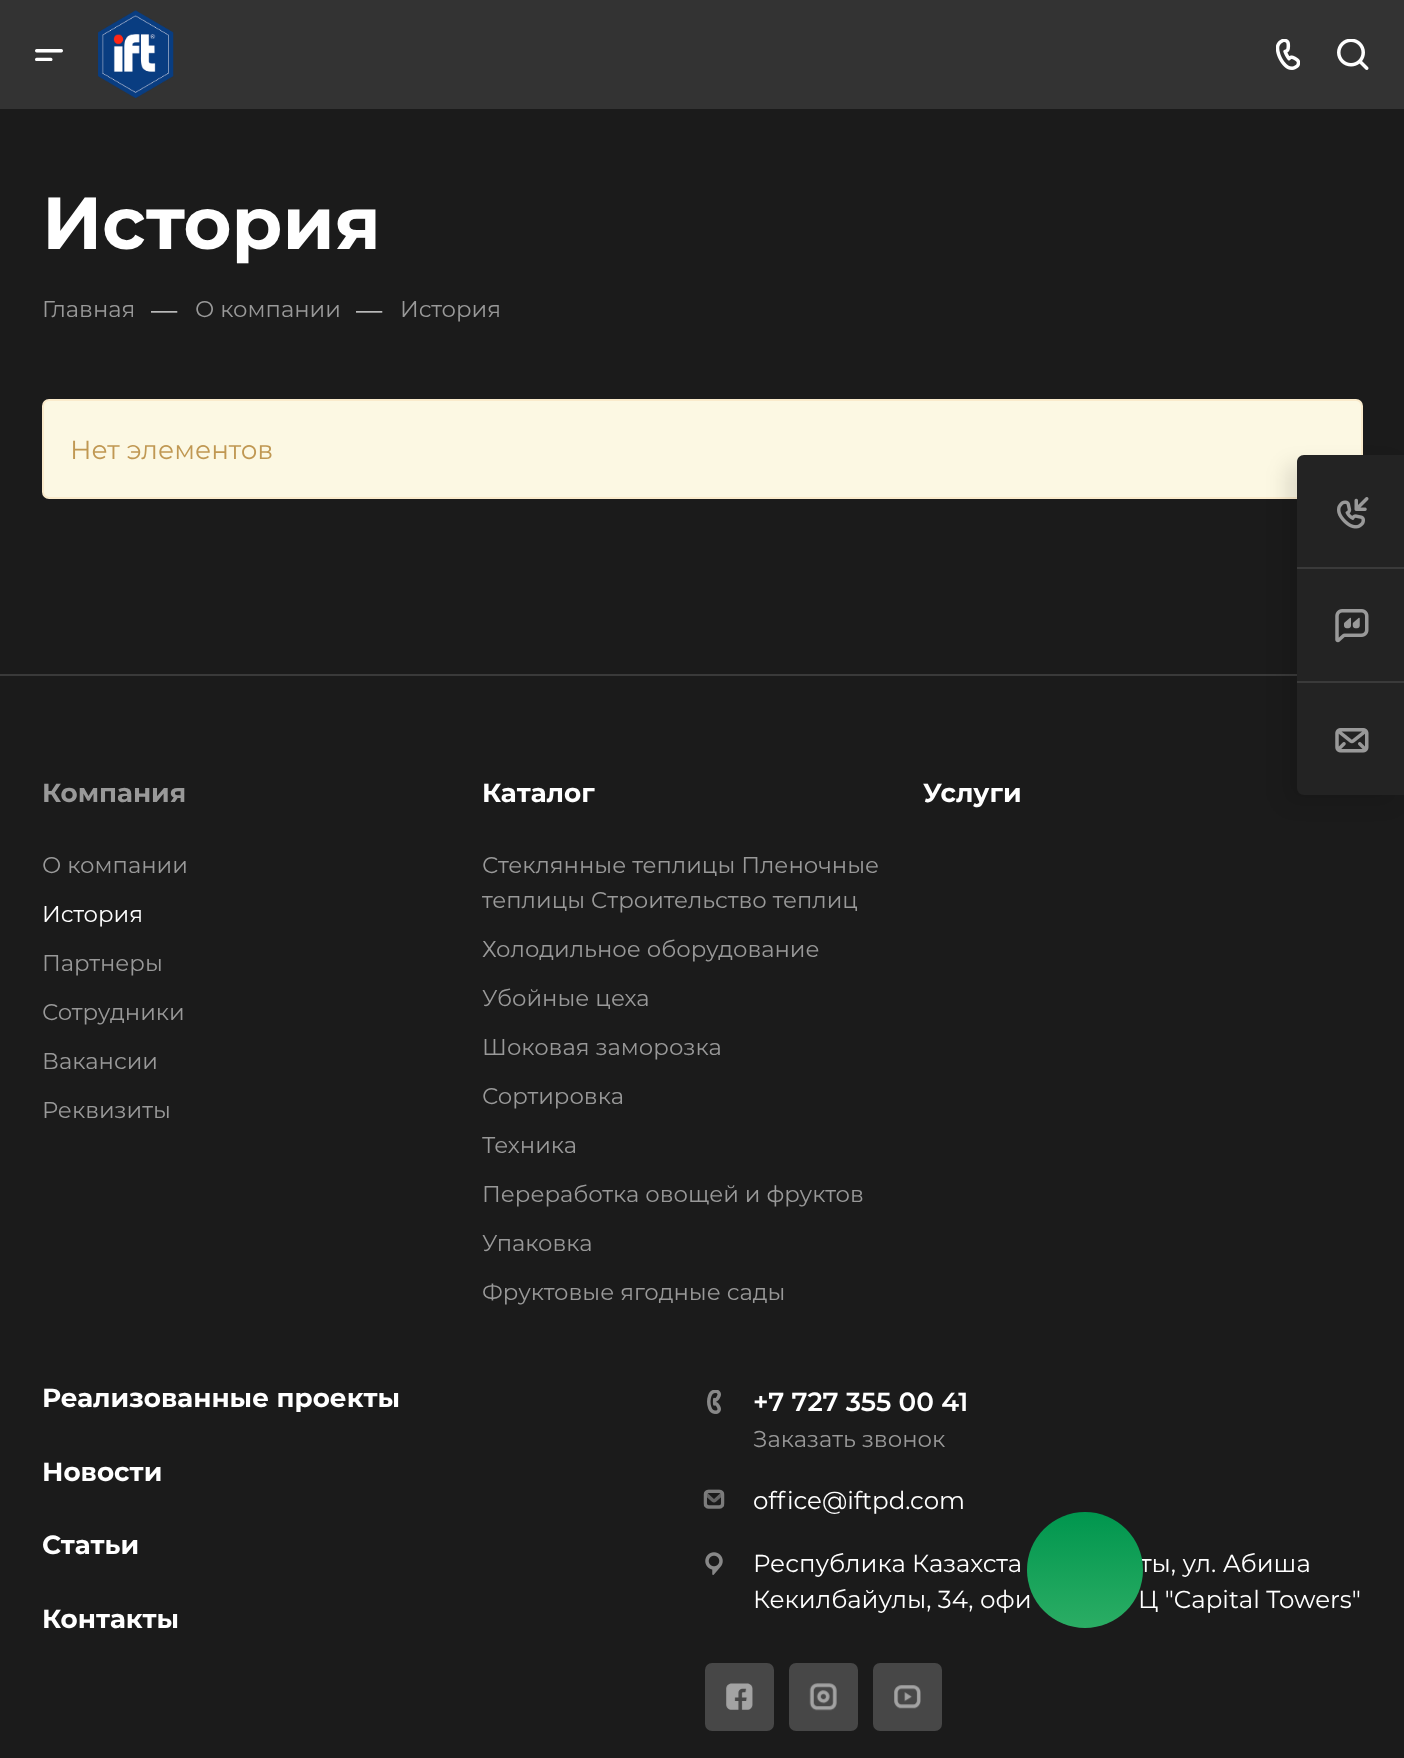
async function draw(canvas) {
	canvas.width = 1404;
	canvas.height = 1758;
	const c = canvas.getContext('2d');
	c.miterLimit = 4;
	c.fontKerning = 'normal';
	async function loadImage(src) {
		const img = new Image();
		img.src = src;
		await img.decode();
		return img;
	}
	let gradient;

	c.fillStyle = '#1b1b1b';
	c.fillRect(0, 0, 1404, 1758);
	c.fillStyle = '#333';
	c.fillRect(0, 0, 1404, 109);
	c.drawImage(await loadImage('img1.png'), 35, 49, 28, 12);
	c.drawImage(await loadImage('img2.png'), 98, 10, 76, 88);
	c.drawImage(await loadImage('img3.png'), 1276, 39, 24, 31);
	c.drawImage(await loadImage('img4.png'), 1337, 39, 32, 31);
	c.font = 'bold 73.5px Montserrat';
	c.fillStyle = '#fff';
	c.fillText('История', 42, 249);
	c.font = '22.75px Montserrat';
	c.fillStyle = '#999';
	c.fillText('Главная', 42, 317);
	c.font = '26.25px Montserrat';
	c.fillStyle = '#ddd';
	c.fillText('—', 151, 319);
	c.font = '22.75px Montserrat';
	c.fillStyle = '#999';
	c.fillText('О компании', 195, 317);
	c.font = '26.25px Montserrat';
	c.fillStyle = '#ddd';
	c.fillText('—', 356, 319);
	c.font = '22.75px Montserrat';
	c.fillStyle = '#999';
	c.fillText('История', 400, 317);
	c.fillStyle = '#fcf8e3';
	c.beginPath();
	c.roundRect(43, 400, 1319, 98, 6);
	c.fill();
	c.strokeStyle = '#faebcc';
	c.lineWidth = 2;
	c.stroke();
	c.font = '26.25px Montserrat';
	c.fillStyle = '#c09853';
	c.fillText('Нет элементов', 70, 459);
	c.fillStyle = '#3a3a3a';
	c.fillRect(0, 674, 1297, 2);
	c.fillStyle = '#0000001a';
	c.filter = 'blur(9.5px)';
	c.beginPath();
	c.roundRect(1285, 464, 110, 339, 7);
	c.fill();
	c.filter = 'none';
	c.fillStyle = '#232323';
	c.beginPath();
	c.moveTo(1304, 455);
	c.lineTo(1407, 455);
	c.lineTo(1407, 795);
	c.lineTo(1304, 795);
	c.bezierCurveTo(1300, 795, 1297, 792, 1297, 788);
	c.lineTo(1297, 462);
	c.bezierCurveTo(1297, 458, 1300, 455, 1304, 455);
	c.closePath();
	c.fill();
	c.drawImage(await loadImage('img5.png'), 1337, 497, 32, 32);
	c.fillStyle = '#3a3a3a';
	c.fillRect(1297, 567, 107, 2);
	c.drawImage(await loadImage('img6.png'), 1335, 609, 34, 34);
	c.fillRect(1297, 681, 107, 2);
	c.drawImage(await loadImage('img7.png'), 1335, 728, 34, 25);
	c.font = 'bold 26.25px Montserrat';
	c.fillStyle = '#999';
	c.fillText('Компания', 42, 802);
	c.font = '22.75px Montserrat';
	c.fillText('О компании', 42, 873);
	c.fillStyle = '#fff';
	c.fillText('История', 42, 922);
	c.fillStyle = '#999';
	for (const [text, x, y] of [
		['Партнеры', 42, 971],
		['Сотрудники', 42, 1020],
		['Вакансии', 42, 1069],
		['Реквизиты', 42, 1118],
	]) {
		c.fillText(text, x, y);
	}
	c.font = 'bold 26.25px Montserrat';
	c.fillStyle = '#fff';
	c.fillText('Каталог', 482, 802);
	c.font = '22.75px Montserrat';
	c.fillStyle = '#999';
	for (const [text, x, y] of [
		['Стеклянные теплицы Пленочные', 482, 873],
		['теплицы Cтроительство теплиц', 482, 908],
		['Холодильное оборудование', 482, 957],
		['Убойные цеха', 482, 1006],
		['Шоковая заморозка', 482, 1055],
		['Сортировка', 482, 1104],
		['Техника', 482, 1153],
		['Переработка овощей и фруктов', 482, 1202],
		['Упаковка', 482, 1251],
		['Фруктовые ягодные сады', 482, 1300],
	]) {
		c.fillText(text, x, y);
	}
	c.font = 'bold 26.25px Montserrat';
	c.fillStyle = '#fff';
	for (const [text, x, y] of [
		['Услуги', 923, 802],
		['Реализованные проекты', 42, 1407],
		['Новости', 42, 1481],
		['Статьи', 42, 1554],
		['Контакты', 42, 1628],
	]) {
		c.fillText(text, x, y);
	}
	c.drawImage(await loadImage('img8.png'), 707, 1390, 14, 24);
	c.font = '600 26.25px Montserrat';
	c.fillText('+7 727 355 00 41', 753, 1411);
	c.font = '22.75px Montserrat';
	c.fillStyle = '#999';
	c.fillText('Заказать звонок', 753, 1447);
	c.drawImage(await loadImage('img9.png'), 703, 1489, 22, 20);
	c.font = '24.5px Montserrat';
	c.fillStyle = '#fff';
	c.fillText('office@iftpd.com', 753, 1509);
	c.drawImage(await loadImage('img10.png'), 705, 1552, 18, 23);
	for (const [text, x, y] of [
		['Республика Казахста', 753, 1572],
		['ты, ул. Абиша', 1140, 1572],
		['Кекилбайулы, 34, офи', 753, 1608],
		['Ц "Capital Towers"', 1138, 1608],
	]) {
		c.fillText(text, x, y);
	}
	c.fillStyle = '#474747';
	c.beginPath();
	c.roundRect(705, 1663, 69, 68, 7);
	c.fill();
	c.drawImage(await loadImage('img11.png'), 726, 1683, 27, 27);
	c.beginPath();
	c.roundRect(789, 1663, 69, 68, 7);
	c.fill();
	c.drawImage(await loadImage('img12.png'), 809, 1683, 28, 28);
	c.beginPath();
	c.roundRect(873, 1663, 69, 68, 7);
	c.fill();
	c.drawImage(await loadImage('img13.png'), 894, 1685, 27, 24);
	gradient = c.createLinearGradient(1085, 1512, 1085, 1628);
	gradient.addColorStop(0, '#00964e');
	gradient.addColorStop(1, '#2bad64');
	c.fillStyle = gradient;
	c.beginPath();
	c.arc(1085, 1570, 58, 0, 2 * Math.PI);
	c.fill();
}

draw(document.querySelector('canvas'));
